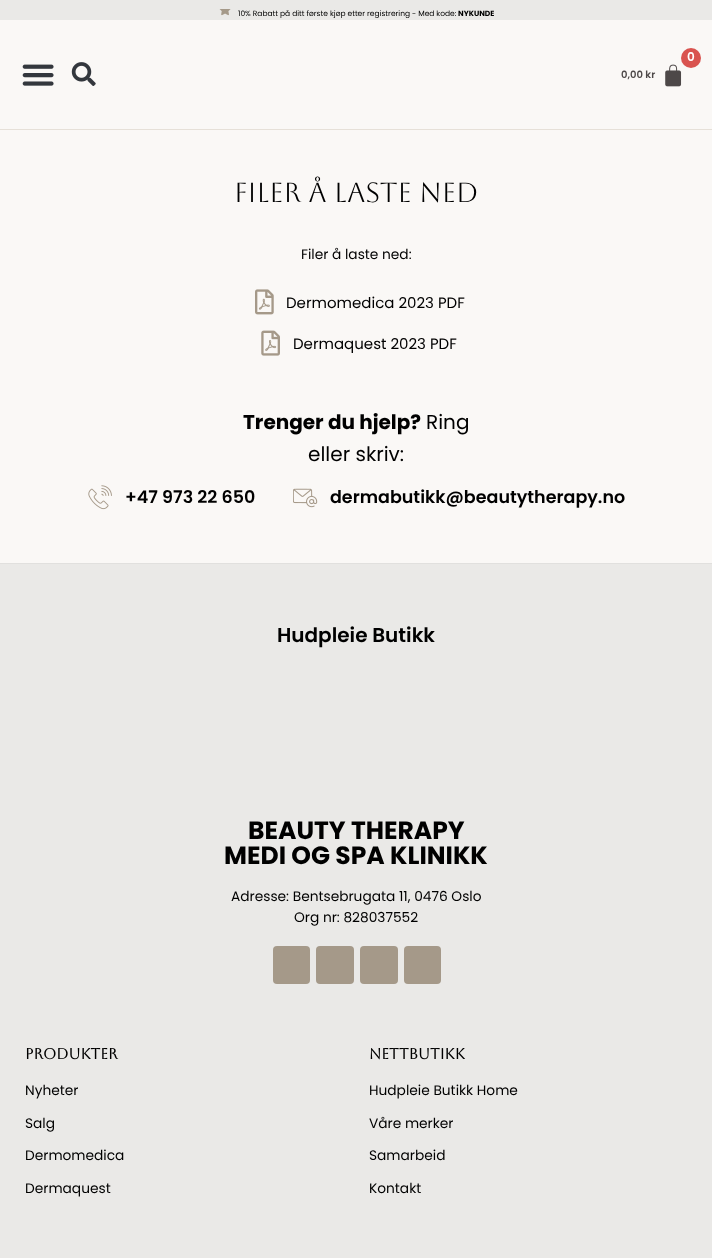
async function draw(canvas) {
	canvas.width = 712;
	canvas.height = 1258;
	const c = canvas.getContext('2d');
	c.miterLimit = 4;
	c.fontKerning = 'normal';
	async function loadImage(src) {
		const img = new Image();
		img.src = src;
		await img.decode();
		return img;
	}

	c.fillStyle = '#faf8f6';
	c.fillRect(0, 0, 712, 1258);
	c.fillStyle = '#eae9e7';
	c.fillRect(0, 0, 712, 20);
	c.drawImage(await loadImage('img1.png'), 219, 9, 12, 7);
	c.font = '7.5px Poppins';
	c.fillStyle = '#000';
	c.fillText('10% Rabatt på ditt første kjøp etter registrering - Med kode:', 238, 16);
	c.font = 'bold 7.5px Poppins';
	c.fillText('NYKUNDE', 458, 16);
	c.fillStyle = '#e6e0d8';
	c.fillRect(0, 129, 712, 1);
	c.drawImage(await loadImage('img2.png'), 22, 64, 32, 22);
	c.drawImage(await loadImage('img3.png'), 71, 62, 25, 24);
	c.drawImage(await loadImage('img4.png'), 665, 64, 17, 23);
	c.fillStyle = '#d9534f';
	c.beginPath();
	c.arc(691, 58, 10, 0, 2 * Math.PI);
	c.fill();
	c.font = '600 12px Poppins';
	c.fillStyle = '#fff';
	c.fillText('0', 687, 61);
	c.font = '600 10px Poppins';
	c.fillStyle = '#4d4848';
	c.fillText('0,00 kr', 621, 78);
	c.font = '27.5px Aboreto';
	c.fillStyle = '#000';
	c.fillText('Filer å laste ned', 234, 202);
	c.font = '13.75px Poppins';
	c.fillText('Filer å laste ned:', 301, 259);
	c.drawImage(await loadImage('img5.png'), 255, 289, 19, 26);
	c.font = '15px Poppins';
	c.fillText('Dermomedica 2023 PDF', 286, 308);
	c.drawImage(await loadImage('img6.png'), 261, 330, 19, 26);
	c.fillText('Dermaquest 2023 PDF', 293, 349);
	c.font = 'bold 20px Poppins';
	c.fillText('Trenger du hjelp?', 243, 429);
	c.font = '20px Poppins';
	c.fillText('Ring', 426, 429);
	c.fillText('eller skriv:', 308, 461);
	c.drawImage(await loadImage('img7.png'), 88, 485, 24, 25);
	c.font = '600 17.5px Poppins';
	c.fillText('+47 973 22 650', 125, 503);
	c.drawImage(await loadImage('img8.png'), 293, 488, 25, 20);
	c.fillText('dermabutikk@beautytherapy.no', 330, 503);
	c.fillStyle = '#eae9e7';
	c.fillRect(0, 564, 712, 694);
	c.fillStyle = '#e1e0de';
	c.fillRect(0, 563, 712, 1);
	c.font = '600 20px Poppins';
	c.fillStyle = '#000';
	c.fillText('Hudpleie Butikk', 277, 642);
	c.font = 'bold 25px Poppins';
	c.fillText('BEAUTY THERAPY', 248, 839);
	c.fillText('MEDI OG SPA KLINIKK', 224, 864);
	c.font = '13.75px Poppins';
	c.fillText('Adresse: Bentsebrugata 11, 0476 Oslo', 231, 901);
	c.fillText('Org nr: 828037552', 294, 922);
	c.fillStyle = '#a59989';
	c.beginPath();
	c.roundRect(273, 946, 37, 38, 4);
	c.fill();
	c.beginPath();
	c.roundRect(316, 946, 38, 38, 4);
	c.fill();
	c.beginPath();
	c.roundRect(360, 946, 38, 38, 4);
	c.fill();
	c.beginPath();
	c.roundRect(404, 946, 37, 38, 4);
	c.fill();
	c.font = 'bold 15px Aboreto';
	c.fillStyle = '#000';
	c.fillText('Produkter', 25, 1059);
	c.font = '13.75px Poppins';
	for (const [text, x, y] of [
		['Nyheter', 25, 1095],
		['Salg', 25, 1128],
		['Dermomedica', 25, 1160],
		['Dermaquest', 25, 1193],
	]) {
		c.fillText(text, x, y);
	}
	c.font = 'bold 15px Aboreto';
	c.fillText('Nettbutikk', 369, 1059);
	c.font = '13.75px Poppins';
	for (const [text, x, y] of [
		['Hudpleie Butikk Home', 369, 1095],
		['Våre merker', 369, 1128],
		['Samarbeid', 369, 1160],
		['Kontakt', 369, 1193],
	]) {
		c.fillText(text, x, y);
	}
}

draw(document.querySelector('canvas'));
